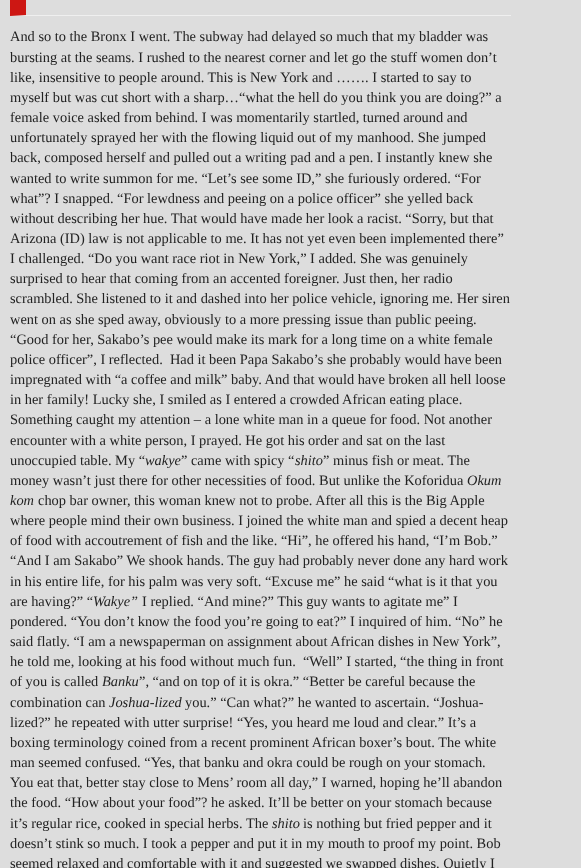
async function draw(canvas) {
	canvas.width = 581;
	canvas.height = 868;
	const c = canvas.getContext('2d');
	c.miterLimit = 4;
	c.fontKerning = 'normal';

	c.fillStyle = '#ddd';
	c.fillRect(0, 0, 581, 868);
	c.fillStyle = '#efefef';
	c.beginPath();
	c.moveTo(511, 16);
	c.lineTo(10, 16);
	c.lineTo(26, 15);
	c.lineTo(511, 15);
	c.closePath();
	c.fill();
	c.fillStyle = '#cd1713';
	c.beginPath();
	c.moveTo(10, 16);
	c.lineTo(10, -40);
	c.lineTo(26, -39);
	c.lineTo(26, 15);
	c.closePath();
	c.fill();
	c.font = '14.4px Liberation Serif';
	c.fillStyle = '#222';
	for (const [text, x, y] of [
		['And so to the Bronx I went. The subway had delayed so much that my bladder was', 10, 41],
		['bursting at the seams. I rushed to the nearest corner and let go the stuff women don’t', 10, 62],
		['like, insensitive to people around. This is New York and ……. I started to say to', 10, 82],
		['myself but was cut short with a sharp…“what the hell do you think you are doing?” a', 10, 102],
		['female voice asked from behind. I was momentarily startled, turned around and', 10, 122],
		['unfortunately sprayed her with the flowing liquid out of my manhood. She jumped', 10, 142],
		['back, composed herself and pulled out a writing pad and a pen. I instantly knew she', 10, 162],
		['wanted to write summon for me. “Let’s see some ID,” she furiously ordered. “For', 10, 183],
		['what”? I snapped. “For lewdness and peeing on a police officer” she yelled back', 10, 203],
		['without describing her hue. That would have made her look a racist. “Sorry, but that', 10, 223],
		['Arizona (ID) law is not applicable to me. It has not yet even been implemented there”', 10, 243],
		['I challenged. “Do you want race riot in New York,” I added. She was genuinely', 10, 263],
		['surprised to hear that coming from an accented foreigner. Just then, her radio', 10, 283],
		['scrambled. She listened to it and dashed into her police vehicle, ignoring me. Her siren', 10, 303],
		['went on as she sped away, obviously to a more pressing issue than public peeing.', 10, 324],
		['“Good for her, Sakabo’s pee would make its mark for a long time on a white female', 10, 344],
		['police officer”, I reflected.  Had it been Papa Sakabo’s she probably would have been', 10, 364],
		['impregnated with “a coffee and milk” baby. And that would have broken all hell loose', 10, 384],
		['in her family! Lucky she, I smiled as I entered a crowded African eating place.', 10, 404],
		['Something caught my attention – a lone white man in a queue for food. Not another', 10, 424],
		['encounter with a white person, I prayed. He got his order and sat on the last', 10, 445],
		['unoccupied table. My “', 10, 465],
	]) {
		c.fillText(text, x, y);
	}
	c.font = 'italic 14.4px Liberation Serif';
	c.fillText('wakye', 145, 465);
	c.font = '14.4px Liberation Serif';
	c.fillText('” came with spicy “', 181, 465);
	c.font = 'italic 14.4px Liberation Serif';
	c.fillText('shito', 295, 465);
	c.font = '14.4px Liberation Serif';
	c.fillText('” minus fish or meat. The', 323, 465);
	c.fillText('money wasn’t just there for other necessities of food. But unlike the Koforidua', 10, 485);
	c.font = 'italic 14.4px Liberation Serif';
	c.fillText('Okum', 467, 485);
	c.fillText('kom', 10, 505);
	c.font = '14.4px Liberation Serif';
	for (const [text, x, y] of [
		['chop bar owner, this woman knew not to probe. After all this is the Big Apple', 38, 505],
		['where people mind their own business. I joined the white man and spied a decent heap', 10, 525],
		['of food with accoutrement of fish and the like. “Hi”, he offered his hand, “I’m Bob.”', 10, 545],
		['“And I am Sakabo” We shook hands. The guy had probably never done any hard work', 10, 565],
		['in his entire life, for his palm was very soft. “Excuse me” he said “what is it that you', 10, 586],
		['are having?” “', 10, 606],
	]) {
		c.fillText(text, x, y);
	}
	c.font = 'italic 14.4px Liberation Serif';
	c.fillText('Wakye”', 93, 606);
	c.font = '14.4px Liberation Serif';
	for (const [text, x, y] of [
		['I replied. “And mine?” This guy wants to agitate me” I', 142, 606],
		['pondered. “You don’t know the food you’re going to eat?” I inquired of him. “No” he', 10, 626],
		['said flatly. “I am a newspaperman on assignment about African dishes in New York”,', 10, 646],
		['he told me, looking at his food without much fun.  “Well” I started, “the thing in front', 10, 666],
		['of you is called', 10, 686],
	]) {
		c.fillText(text, x, y);
	}
	c.font = 'italic 14.4px Liberation Serif';
	c.fillText('Banku', 102, 686);
	c.font = '14.4px Liberation Serif';
	c.fillText('”, “and on top of it is okra.” “Better be careful because the', 139, 686);
	c.fillText('combination can', 10, 707);
	c.font = 'italic 14.4px Liberation Serif';
	c.fillText('Joshua-lized', 109, 707);
	c.font = '14.4px Liberation Serif';
	for (const [text, x, y] of [
		['you.” “Can what?” he wanted to ascertain. “Joshua-', 185, 707],
		['lized?” he repeated with utter surprise! “Yes, you heard me loud and clear.” It’s a', 10, 727],
		['boxing terminology coined from a recent prominent African boxer’s bout. The white', 10, 747],
		['man seemed confused. “Yes, that banku and okra could be rough on your stomach.', 10, 767],
		['You eat that, better stay close to Mens’ room all day,” I warned, hoping he’ll abandon', 10, 787],
		['the food. “How about your food”? he asked. It’ll be better on your stomach because', 10, 807],
		['it’s regular rice, cooked in special herbs. The', 10, 828],
	]) {
		c.fillText(text, x, y);
	}
	c.font = 'italic 14.4px Liberation Serif';
	c.fillText('shito', 272, 828);
	c.font = '14.4px Liberation Serif';
	for (const [text, x, y] of [
		['is nothing but fried pepper and it', 303, 828],
		['doesn’t stink so much. I took a pepper and put it in my mouth to proof my point. Bob', 10, 848],
		['seemed relaxed and comfortable with it and suggested we swapped dishes. Quietly I', 10, 868],
	]) {
		c.fillText(text, x, y);
	}
}

draw(document.querySelector('canvas'));
